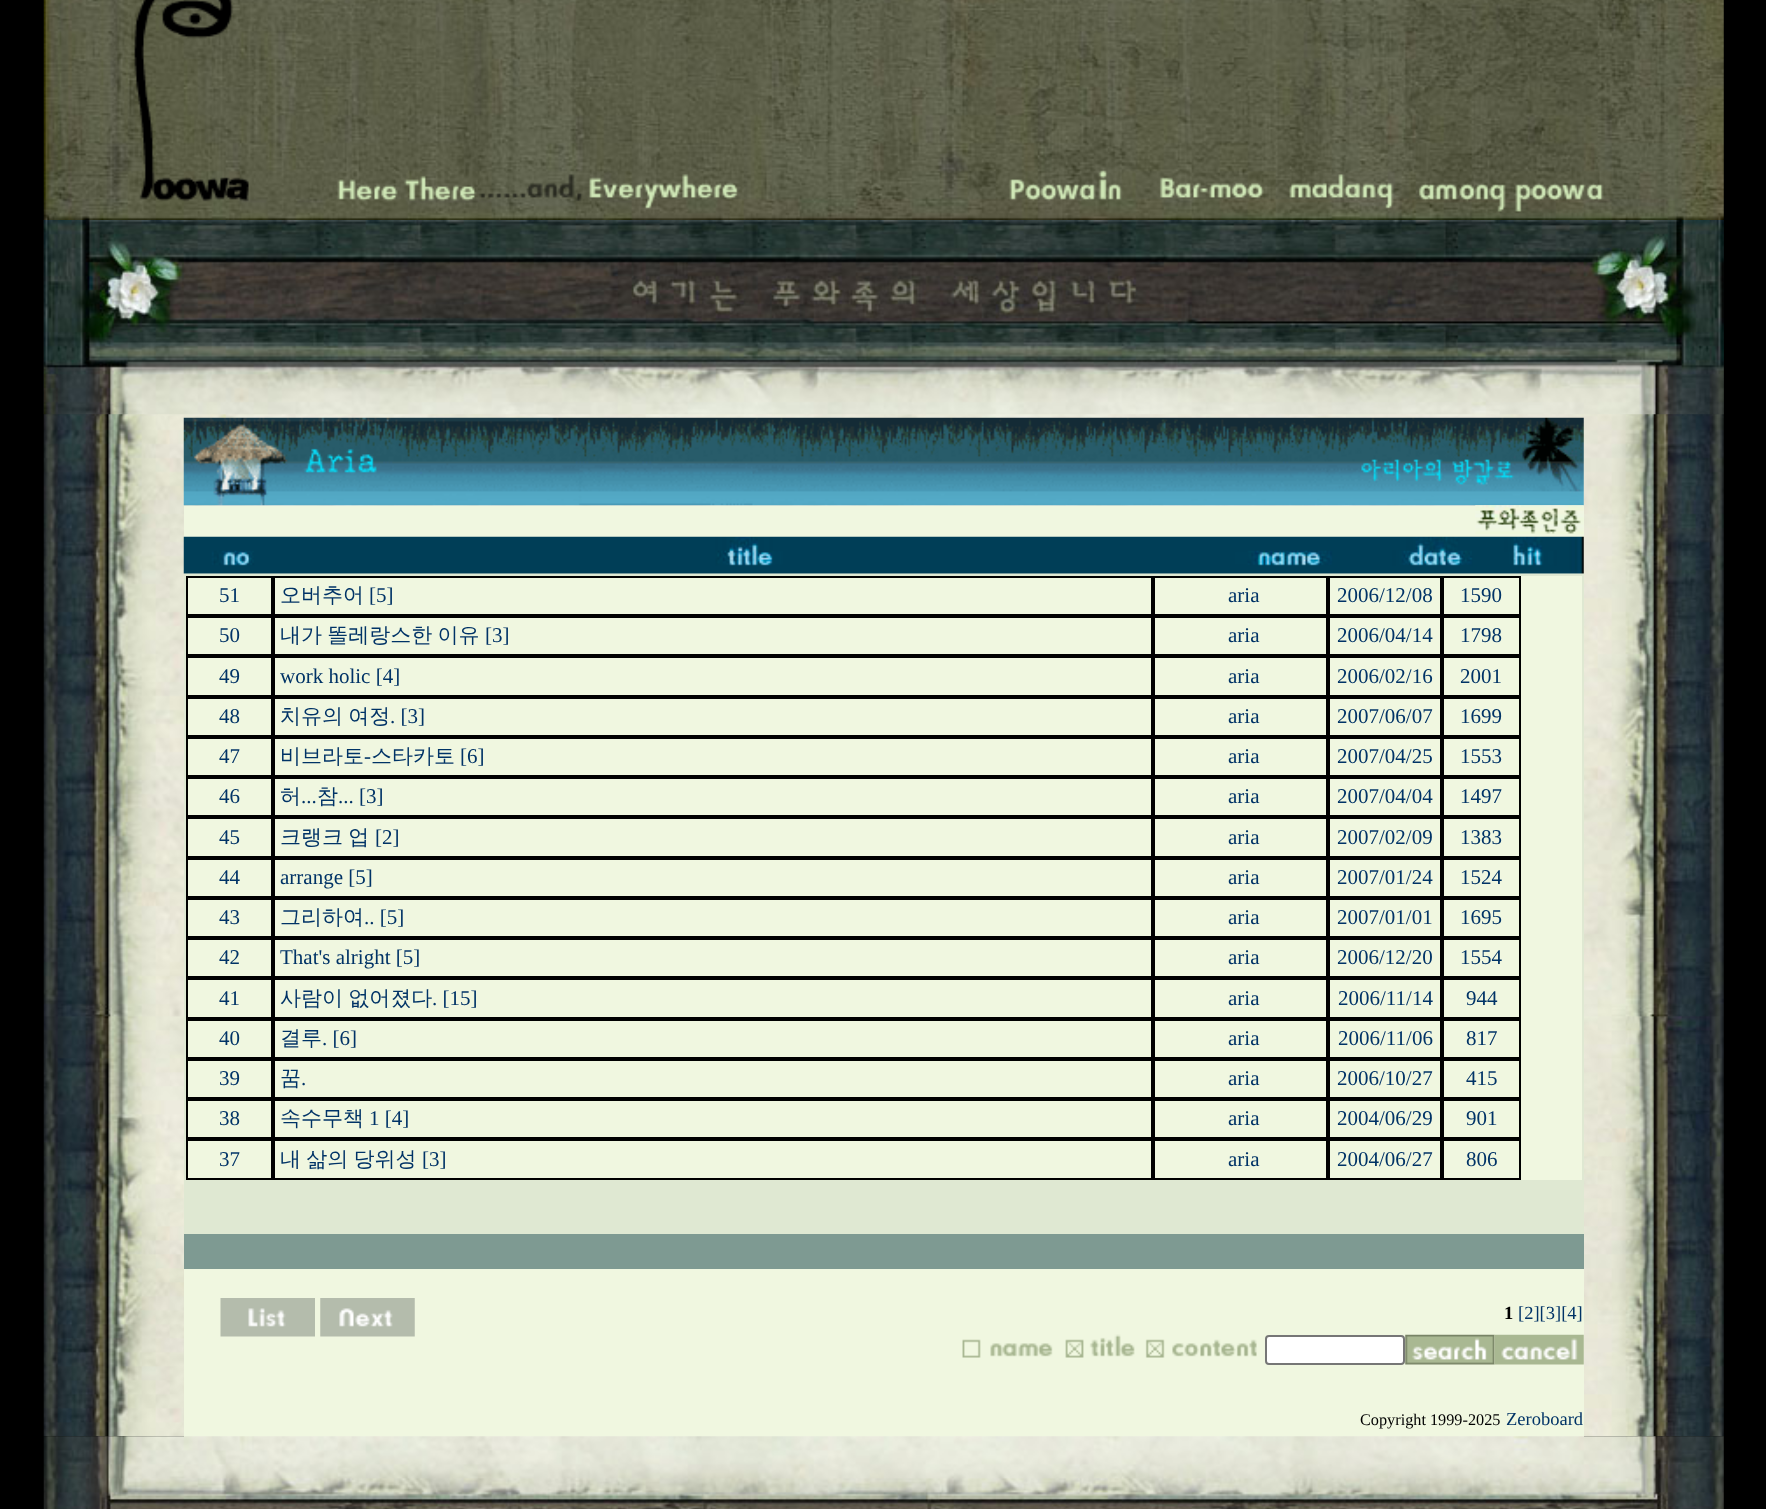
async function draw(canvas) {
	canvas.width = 1766;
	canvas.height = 1509;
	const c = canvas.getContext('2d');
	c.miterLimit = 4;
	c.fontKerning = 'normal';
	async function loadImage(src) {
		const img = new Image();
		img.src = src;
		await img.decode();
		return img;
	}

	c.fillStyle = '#000';
	c.fillRect(0, 0, 1766, 1509);
	c.drawImage(await loadImage('img1.png'), 43, 0, 1681, 220);
	c.drawImage(await loadImage('img2.png'), 43, 220, 1681, 1217);
	c.drawImage(await loadImage('img3.png'), 43, 220, 1681, 195);
	c.drawImage(await loadImage('img4.png'), 183, 417, 1401, 89);
	c.fillStyle = '#f0f7e0';
	c.fillRect(184, 506, 1400, 931);
	c.drawImage(await loadImage('img5.png'), 1475, 505, 109, 29);
	c.drawImage(await loadImage('img6.png'), 183, 536, 1401, 38);
	c.strokeStyle = '#dfe8d2';
	c.lineWidth = 2;
	c.strokeRect(185, 575, 1398, 605);
	c.strokeStyle = '#000';
	c.strokeRect(187, 577, 85, 38);
	c.font = '21px Liberation Serif';
	c.fillStyle = '#036';
	c.fillText('51', 219, 602);
	c.strokeRect(274, 577, 878, 38);
	c.font = '500 21px WenQuanYi Zen Hei';
	c.fillText('오버추어', 280, 602);
	c.font = '21px Liberation Serif';
	c.fillText('[5]', 369, 602);
	c.strokeRect(1154, 577, 173, 38);
	c.fillText('aria', 1228, 602);
	c.strokeRect(1329, 577, 112, 38);
	c.fillText('2006/12/08', 1337, 602);
	c.strokeRect(1443, 577, 77, 38);
	c.fillText('1590', 1460, 602);
	c.strokeRect(187, 617, 85, 38);
	c.fillText('50', 219, 642);
	c.strokeRect(274, 617, 878, 38);
	c.wordSpacing = '-1px';
	c.font = '500 21px WenQuanYi Zen Hei';
	c.fillText('내가 똘레랑스한 이유', 280, 642);
	c.wordSpacing = '0px';
	c.font = '21px Liberation Serif';
	c.fillText('[3]', 485, 642);
	c.strokeRect(1154, 617, 173, 38);
	c.fillText('aria', 1228, 642);
	c.strokeRect(1329, 617, 112, 38);
	c.fillText('2006/04/14', 1337, 642);
	c.strokeRect(1443, 617, 77, 38);
	c.fillText('1798', 1460, 642);
	c.strokeRect(187, 657, 85, 39);
	c.fillText('49', 219, 683);
	c.strokeRect(274, 657, 878, 39);
	c.fillText('work holic [4]', 280, 683);
	c.strokeRect(1154, 657, 173, 39);
	c.fillText('aria', 1228, 683);
	c.strokeRect(1329, 657, 112, 39);
	c.fillText('2006/02/16', 1337, 683);
	c.strokeRect(1443, 657, 77, 39);
	c.fillText('2001', 1460, 683);
	c.strokeRect(187, 698, 85, 38);
	c.fillText('48', 219, 723);
	c.strokeRect(274, 698, 878, 38);
	c.wordSpacing = '-1px';
	c.font = '500 21px WenQuanYi Zen Hei';
	c.fillText('치유의 여정', 280, 723);
	c.wordSpacing = '0px';
	c.font = '21px Liberation Serif';
	c.fillText('. [3]', 390, 723);
	c.strokeRect(1154, 698, 173, 38);
	c.fillText('aria', 1228, 723);
	c.strokeRect(1329, 698, 112, 38);
	c.fillText('2007/06/07', 1337, 723);
	c.strokeRect(1443, 698, 77, 38);
	c.fillText('1699', 1460, 723);
	c.strokeRect(187, 738, 85, 38);
	c.fillText('47', 219, 763);
	c.strokeRect(274, 738, 878, 38);
	c.font = '500 21px WenQuanYi Zen Hei';
	c.fillText('비브라토', 280, 763);
	c.font = '21px Liberation Serif';
	c.fillText('-', 364, 763);
	c.font = '500 21px WenQuanYi Zen Hei';
	c.fillText('스타카토', 371, 763);
	c.font = '21px Liberation Serif';
	c.fillText('[6]', 460, 763);
	c.strokeRect(1154, 738, 173, 38);
	c.fillText('aria', 1228, 763);
	c.strokeRect(1329, 738, 112, 38);
	c.fillText('2007/04/25', 1337, 763);
	c.strokeRect(1443, 738, 77, 38);
	c.fillText('1553', 1460, 763);
	c.strokeRect(187, 778, 85, 38);
	c.fillText('46', 219, 803);
	c.strokeRect(274, 778, 878, 38);
	c.font = '500 21px WenQuanYi Zen Hei';
	c.fillText('허', 280, 803);
	c.font = '21px Liberation Serif';
	c.fillText('...', 301, 803);
	c.font = '500 21px WenQuanYi Zen Hei';
	c.fillText('참', 317, 803);
	c.font = '21px Liberation Serif';
	c.fillText('... [3]', 338, 803);
	c.strokeRect(1154, 778, 173, 38);
	c.fillText('aria', 1228, 803);
	c.strokeRect(1329, 778, 112, 38);
	c.fillText('2007/04/04', 1337, 803);
	c.strokeRect(1443, 778, 77, 38);
	c.fillText('1497', 1460, 803);
	c.strokeRect(187, 818, 85, 39);
	c.fillText('45', 219, 844);
	c.strokeRect(274, 818, 878, 39);
	c.wordSpacing = '-1px';
	c.font = '500 21px WenQuanYi Zen Hei';
	c.fillText('크랭크 업', 280, 844);
	c.wordSpacing = '0px';
	c.font = '21px Liberation Serif';
	c.fillText('[2]', 375, 844);
	c.strokeRect(1154, 818, 173, 39);
	c.fillText('aria', 1228, 844);
	c.strokeRect(1329, 818, 112, 39);
	c.fillText('2007/02/09', 1337, 844);
	c.strokeRect(1443, 818, 77, 39);
	c.fillText('1383', 1460, 844);
	c.strokeRect(187, 859, 85, 38);
	c.fillText('44', 219, 884);
	c.strokeRect(274, 859, 878, 38);
	c.fillText('arrange [5]', 280, 884);
	c.strokeRect(1154, 859, 173, 38);
	c.fillText('aria', 1228, 884);
	c.strokeRect(1329, 859, 112, 38);
	c.fillText('2007/01/24', 1337, 884);
	c.strokeRect(1443, 859, 77, 38);
	c.fillText('1524', 1460, 884);
	c.strokeRect(187, 899, 85, 38);
	c.fillText('43', 219, 924);
	c.strokeRect(274, 899, 878, 38);
	c.font = '500 21px WenQuanYi Zen Hei';
	c.fillText('그리하여', 280, 924);
	c.font = '21px Liberation Serif';
	c.fillText('.. [5]', 364, 924);
	c.strokeRect(1154, 899, 173, 38);
	c.fillText('aria', 1228, 924);
	c.strokeRect(1329, 899, 112, 38);
	c.fillText('2007/01/01', 1337, 924);
	c.strokeRect(1443, 899, 77, 38);
	c.fillText('1695', 1460, 924);
	c.strokeRect(187, 939, 85, 38);
	c.fillText('42', 219, 964);
	c.strokeRect(274, 939, 878, 38);
	c.fillText('That\'s alright [5]', 280, 964);
	c.strokeRect(1154, 939, 173, 38);
	c.fillText('aria', 1228, 964);
	c.strokeRect(1329, 939, 112, 38);
	c.fillText('2006/12/20', 1337, 964);
	c.strokeRect(1443, 939, 77, 38);
	c.fillText('1554', 1460, 964);
	c.strokeRect(187, 979, 85, 39);
	c.fillText('41', 219, 1005);
	c.strokeRect(274, 979, 878, 39);
	c.wordSpacing = '-1px';
	c.font = '500 21px WenQuanYi Zen Hei';
	c.fillText('사람이 없어졌다', 280, 1005);
	c.wordSpacing = '0px';
	c.font = '21px Liberation Serif';
	c.fillText('. [15]', 432, 1005);
	c.strokeRect(1154, 979, 173, 39);
	c.fillText('aria', 1228, 1005);
	c.strokeRect(1329, 979, 112, 39);
	c.fillText('2006/11/14', 1338, 1005);
	c.strokeRect(1443, 979, 77, 39);
	c.fillText('944', 1466, 1005);
	c.strokeRect(187, 1020, 85, 38);
	c.fillText('40', 219, 1045);
	c.strokeRect(274, 1020, 878, 38);
	c.font = '500 21px WenQuanYi Zen Hei';
	c.fillText('결루', 280, 1045);
	c.font = '21px Liberation Serif';
	c.fillText('. [6]', 322, 1045);
	c.strokeRect(1154, 1020, 173, 38);
	c.fillText('aria', 1228, 1045);
	c.strokeRect(1329, 1020, 112, 38);
	c.fillText('2006/11/06', 1338, 1045);
	c.strokeRect(1443, 1020, 77, 38);
	c.fillText('817', 1466, 1045);
	c.strokeRect(187, 1060, 85, 38);
	c.fillText('39', 219, 1085);
	c.strokeRect(274, 1060, 878, 38);
	c.font = '500 21px WenQuanYi Zen Hei';
	c.fillText('꿈', 280, 1085);
	c.font = '21px Liberation Serif';
	c.fillText('.', 301, 1085);
	c.strokeRect(1154, 1060, 173, 38);
	c.fillText('aria', 1228, 1085);
	c.strokeRect(1329, 1060, 112, 38);
	c.fillText('2006/10/27', 1337, 1085);
	c.strokeRect(1443, 1060, 77, 38);
	c.fillText('415', 1466, 1085);
	c.strokeRect(187, 1100, 85, 38);
	c.fillText('38', 219, 1125);
	c.strokeRect(274, 1100, 878, 38);
	c.font = '500 21px WenQuanYi Zen Hei';
	c.fillText('속수무책', 280, 1125);
	c.font = '21px Liberation Serif';
	c.fillText('1 [4]', 369, 1125);
	c.strokeRect(1154, 1100, 173, 38);
	c.fillText('aria', 1228, 1125);
	c.strokeRect(1329, 1100, 112, 38);
	c.fillText('2004/06/29', 1337, 1125);
	c.strokeRect(1443, 1100, 77, 38);
	c.fillText('901', 1466, 1125);
	c.fillStyle = '#f0f7e0';
	c.fillRect(188, 1179, 1394, 1);
	c.strokeRect(187, 1140, 85, 39);
	c.fillStyle = '#036';
	c.fillText('37', 219, 1166);
	c.strokeRect(274, 1140, 878, 39);
	c.wordSpacing = '-1px';
	c.font = '500 21px WenQuanYi Zen Hei';
	c.fillText('내 삶의 당위성', 280, 1166);
	c.wordSpacing = '0px';
	c.font = '21px Liberation Serif';
	c.fillText('[3]', 422, 1166);
	c.strokeRect(1154, 1140, 173, 39);
	c.fillText('aria', 1228, 1166);
	c.strokeRect(1329, 1140, 112, 39);
	c.fillText('2004/06/27', 1337, 1166);
	c.strokeRect(1443, 1140, 77, 39);
	c.fillText('806', 1466, 1166);
	c.fillStyle = '#dfe8d2';
	c.fillRect(184, 1181, 1400, 53);
	c.fillStyle = '#7e9a92';
	c.fillRect(184, 1234, 1400, 35);
	c.drawImage(await loadImage('img7.png'), 220, 1298, 95, 39);
	c.drawImage(await loadImage('img8.png'), 320, 1298, 95, 39);
	c.font = 'bold 18.5px Liberation Serif';
	c.fillStyle = '#000';
	c.fillText('1', 1504, 1319);
	c.font = '18.5px Liberation Serif';
	c.fillStyle = '#036';
	c.fillText('[2][3][4]', 1518, 1319);
	c.drawImage(await loadImage('img9.png'), 962, 1339, 91, 19);
	c.drawImage(await loadImage('img10.png'), 1065, 1334, 70, 24);
	c.drawImage(await loadImage('img11.png'), 1145, 1339, 112, 19);
	c.fillStyle = '#fff';
	c.beginPath();
	c.roundRect(1266, 1336, 138, 28, 3);
	c.fill();
	c.strokeStyle = '#767676';
	c.stroke();
	c.drawImage(await loadImage('img12.png'), 1405, 1334, 90, 31);
	c.drawImage(await loadImage('img13.png'), 1494, 1334, 90, 31);
	c.font = '16.25px Liberation Serif';
	c.fillStyle = '#000';
	c.fillText('Copyright 1999-2025', 1360, 1425);
	c.font = '18.5px Liberation Serif';
	c.fillStyle = '#036';
	c.fillText('Zeroboard', 1506, 1425);
	c.drawImage(await loadImage('img14.png'), 43, 1436, 1681, 73);
}

draw(document.querySelector('canvas'));
